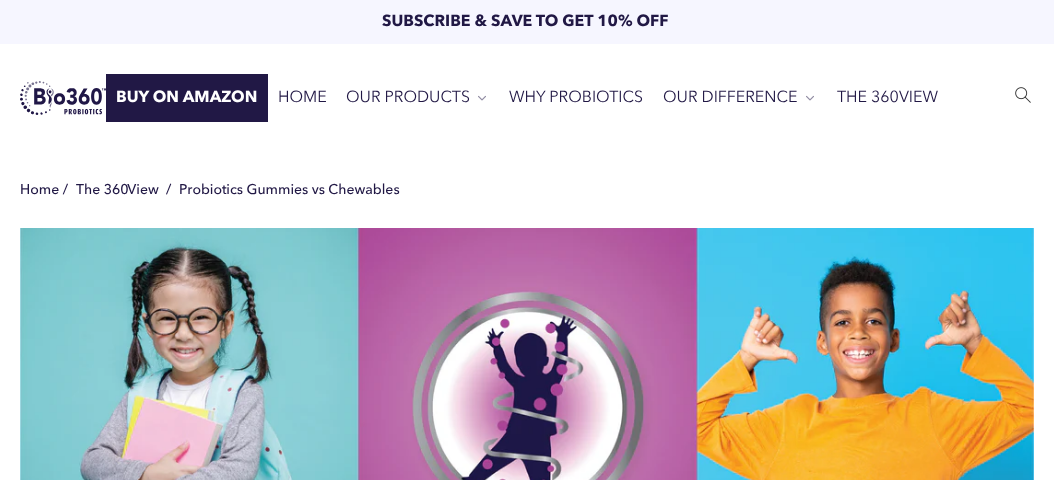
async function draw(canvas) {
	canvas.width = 1054;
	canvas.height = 480;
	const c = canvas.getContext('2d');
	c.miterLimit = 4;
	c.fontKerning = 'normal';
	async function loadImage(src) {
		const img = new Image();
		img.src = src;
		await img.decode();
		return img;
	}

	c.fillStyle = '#fff';
	c.fillRect(0, 0, 1054, 480);
	c.fillStyle = '#f6f6ff';
	c.fillRect(0, 0, 1054, 44);
	c.font = 'bold 16px Avenir Next';
	c.fillStyle = '#211845';
	c.fillText('SUBSCRIBE & SAVE TO GET 10% OFF', 382, 26);
	c.drawImage(await loadImage('img1.png'), 20, 81, 86, 34);
	c.fillRect(106, 74, 162, 48);
	c.fillStyle = '#fff';
	c.fillText('BUY ON AMAZON', 116, 102);
	c.font = '16px Avenir Next';
	c.fillStyle = '#211845';
	c.fillText('HOME', 278, 102);
	c.fillText('OUR PRODUCTS', 346, 102);
	c.drawImage(await loadImage('img2.png'), 478, 95, 8, 6);
	c.fillText('WHY PROBIOTICS', 509, 102);
	c.fillText('OUR DIFFERENCE', 663, 102);
	c.drawImage(await loadImage('img2.png'), 806, 95, 8, 6);
	c.fillText('THE 360VIEW', 837, 102);
	c.drawImage(await loadImage('img3.png'), 1015, 87, 16, 16);
	c.font = '500 14px Avenir Next';
	for (const [text, x, y] of [
		['Home /', 20, 194],
		['The 360View', 76, 194],
		['/', 166, 194],
		['Probiotics Gummies vs Chewables', 179, 194],
	]) {
		c.fillText(text, x, y);
	}
	c.drawImage(await loadImage('img4.png'), 20, 228, 1014, 252);
}

draw(document.querySelector('canvas'));
